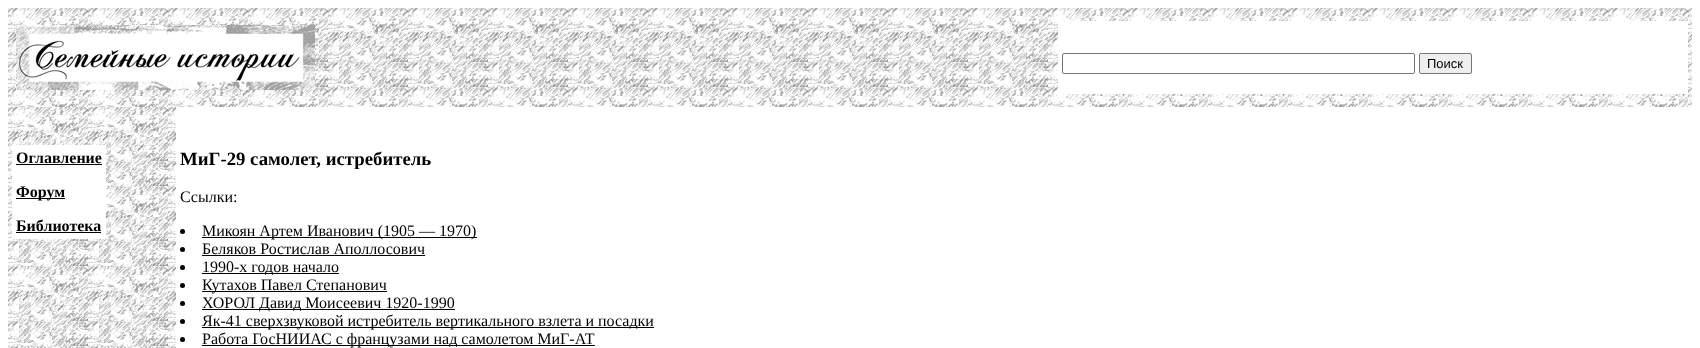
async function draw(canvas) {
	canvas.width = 1700;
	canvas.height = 348;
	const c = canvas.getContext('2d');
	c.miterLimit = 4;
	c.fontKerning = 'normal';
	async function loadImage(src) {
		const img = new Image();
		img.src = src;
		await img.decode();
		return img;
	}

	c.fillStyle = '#fff';
	c.fillRect(0, 0, 1700, 348);
	c.drawImage(await loadImage('img1.png'), 8, 8, 1684, 99);
	c.drawImage(await loadImage('img2.png'), 16, 25, 299, 65);
	c.fillRect(1058, 21, 630, 73);
	c.beginPath();
	c.roundRect(1062.5, 53.5, 352, 20, 1.5);
	c.strokeStyle = '#767676';
	c.stroke();
	c.fillStyle = '#efefef';
	c.beginPath();
	c.roundRect(1419.5, 53.5, 52, 20, 1.5);
	c.fill();
	c.stroke();
	c.font = '13px Liberation Sans';
	c.fillStyle = '#000';
	c.fillText('Поиск', 1427, 68);
	c.drawImage(await loadImage('img3.png'), 8, 107, 168, 241);
	c.fillStyle = '#fff';
	c.fillRect(12, 145, 94, 94);
	c.font = 'bold 16px Liberation Serif';
	c.fillStyle = '#000';
	c.fillText('Оглавление', 16, 163);
	c.fillRect(16, 164, 86, 1);
	c.fillRect(16, 198, 49, 1);
	c.fillText('Форум', 16, 197);
	c.fillText('Библиотека', 16, 231);
	c.fillRect(16, 232, 85, 1);
	c.font = 'bold 18.75px Liberation Serif';
	c.fillText('МиГ-29 самолет, истребитель', 180, 165);
	c.font = '16px Liberation Serif';
	c.fillText('Ссылки:', 180, 202);
	c.beginPath();
	c.arc(182.5, 231.5, 2.5, 0, 2 * Math.PI);
	c.fill();
	c.fillRect(202, 237, 275, 1);
	c.fillText('Микоян Артем Иванович (1905 — 1970)', 202, 236);
	c.beginPath();
	c.arc(182.5, 249.5, 2.5, 0, 2 * Math.PI);
	c.fill();
	c.fillText('Беляков Ростислав Аполлосович', 202, 254);
	c.fillRect(202, 255, 223, 1);
	c.beginPath();
	c.arc(182.5, 267.5, 2.5, 0, 2 * Math.PI);
	c.fill();
	c.fillRect(202, 273, 137, 1);
	c.fillText('1990-х годов начало', 202, 272);
	c.beginPath();
	c.arc(182.5, 285.5, 2.5, 0, 2 * Math.PI);
	c.fill();
	c.fillRect(202, 291, 185, 1);
	c.fillText('Кутахов Павел Степанович', 202, 290);
	c.beginPath();
	c.arc(182.5, 303.5, 2.5, 0, 2 * Math.PI);
	c.fill();
	c.fillRect(202, 309, 253, 1);
	c.fillText('ХОРОЛ Давид Моисеевич 1920-1990', 202, 308);
	c.beginPath();
	c.arc(182.5, 321.5, 2.5, 0, 2 * Math.PI);
	c.fill();
	c.fillRect(202, 327, 452, 1);
	c.fillText('Як-41 сверхзвуковой истребитель вертикального взлета и посадки', 202, 326);
	c.beginPath();
	c.arc(182.5, 339.5, 2.5, 0, 2 * Math.PI);
	c.fill();
	c.fillRect(202, 345, 393, 1);
	c.fillText('Работа ГосНИИАС с французами над самолетом МиГ-АТ', 202, 344);
}

draw(document.querySelector('canvas'));
